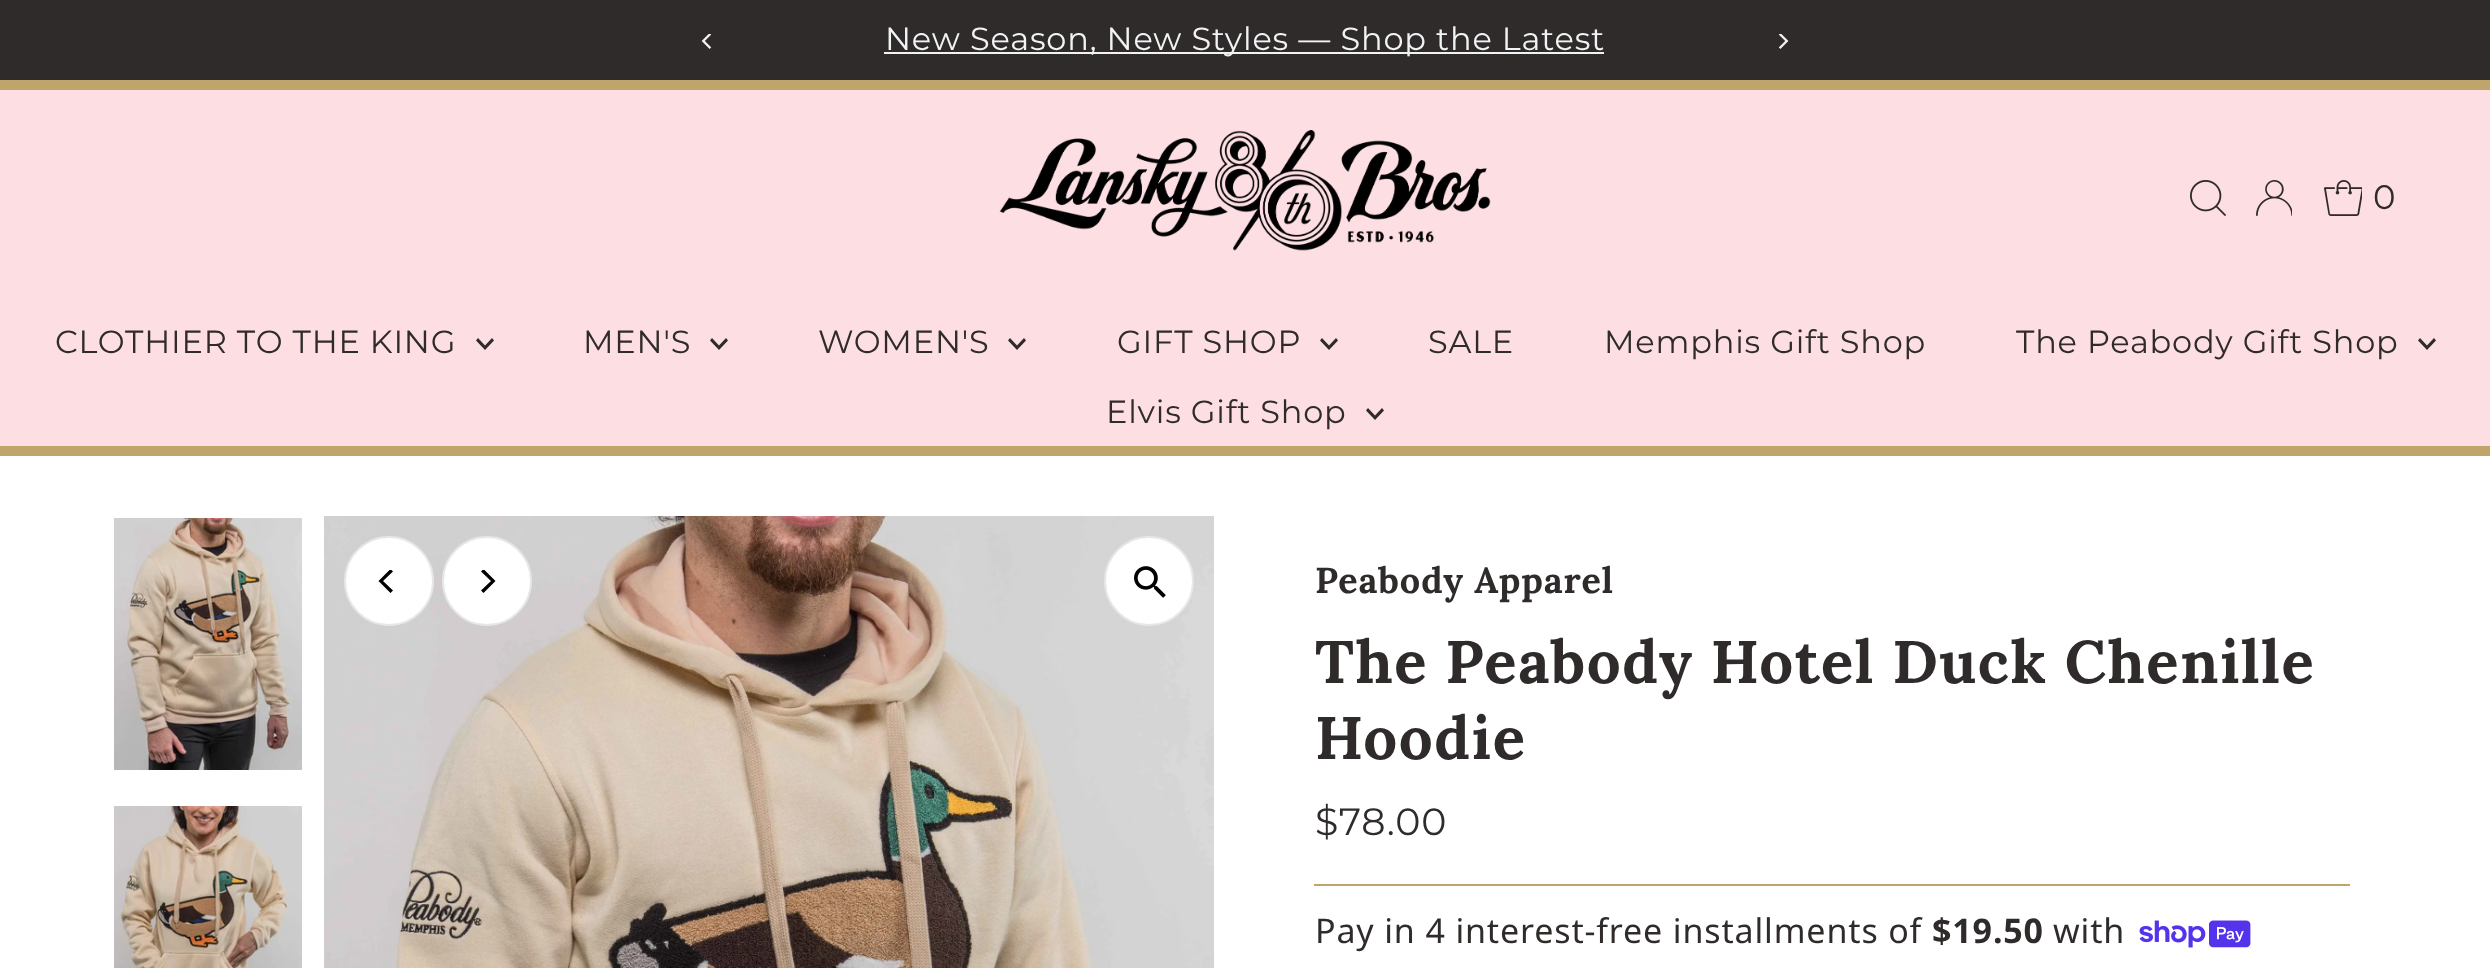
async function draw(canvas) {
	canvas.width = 2490;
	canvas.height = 968;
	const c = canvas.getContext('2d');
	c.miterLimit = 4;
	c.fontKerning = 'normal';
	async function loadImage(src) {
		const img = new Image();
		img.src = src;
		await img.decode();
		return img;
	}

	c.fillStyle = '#fff';
	c.fillRect(0, 0, 2490, 968);
	c.fillStyle = '#302b2b';
	c.fillRect(0, 0, 2490, 80);
	c.drawImage(await loadImage('img1.png'), 701, 34, 11, 15);
	c.fillStyle = '#f2f3f4';
	c.fillRect(884, 52, 720, 2);
	c.letterSpacing = '0.85px';
	c.font = '32px Montserrat';
	c.fillText('New Season, New Styles — Shop the Latest', 885, 50);
	c.drawImage(await loadImage('img2.png'), 1778, 34, 11, 15);
	for (const [x, y, w, h, color] of [
		[0, 90, 2490, 356, '#fcdee3'],
		[0, 80, 2490, 10, '#bfa56a'],
		[0, 446, 2490, 10, '#bfa56a'],
	]) {
		c.fillStyle = color;
		c.fillRect(x, y, w, h);
	}
	c.drawImage(await loadImage('img3.png'), 999, 130, 492, 121);
	c.drawImage(await loadImage('img4.png'), 2190, 180, 36, 36);
	c.drawImage(await loadImage('img5.png'), 2256, 180, 36, 36);
	c.drawImage(await loadImage('img6.png'), 2324, 180, 38, 36);
	c.font = '34px Montserrat';
	c.fillStyle = '#302b2b';
	c.fillText('0', 2373, 209);
	c.letterSpacing = '0.8px';
	c.font = '32px Montserrat';
	c.fillText('CLOTHIER TO THE KING', 55, 353);
	c.beginPath();
	c.moveTo(492, 338);
	c.lineTo(485, 345.5);
	c.lineTo(478, 338);
	c.lineTo(476, 340.5);
	c.lineTo(485, 350);
	c.lineTo(494, 340.5);
	c.closePath();
	c.fill();
	c.fillText('MEN\'S', 583, 353);
	c.beginPath();
	c.moveTo(726, 338);
	c.lineTo(719, 345.5);
	c.lineTo(712, 338);
	c.lineTo(710, 340.5);
	c.lineTo(719, 350);
	c.lineTo(728, 340.5);
	c.closePath();
	c.fill();
	c.fillText('WOMEN\'S', 818, 353);
	c.beginPath();
	c.moveTo(1024, 338);
	c.lineTo(1017, 345.5);
	c.lineTo(1010, 338);
	c.lineTo(1008, 340.5);
	c.lineTo(1017, 350);
	c.lineTo(1026, 340.5);
	c.closePath();
	c.fill();
	c.fillText('GIFT SHOP', 1117, 353);
	c.beginPath();
	c.moveTo(1336, 338);
	c.lineTo(1329, 345.5);
	c.lineTo(1322, 338);
	c.lineTo(1320, 340.5);
	c.lineTo(1329, 350);
	c.lineTo(1338, 340.5);
	c.closePath();
	c.fill();
	for (const [text, x, y] of [
		['SALE', 1428, 353],
		['Memphis Gift Shop', 1604, 353],
		['The Peabody Gift Shop', 2016, 353],
	]) {
		c.fillText(text, x, y);
	}
	c.beginPath();
	c.moveTo(2434, 338);
	c.lineTo(2427, 345.5);
	c.lineTo(2420, 338);
	c.lineTo(2418, 340.5);
	c.lineTo(2427, 350);
	c.lineTo(2436, 340.5);
	c.closePath();
	c.fill();
	c.fillText('Elvis Gift Shop', 1106, 423);
	c.beginPath();
	c.moveTo(1382, 408);
	c.lineTo(1375, 415.5);
	c.lineTo(1368, 408);
	c.lineTo(1366, 410.5);
	c.lineTo(1375, 420);
	c.lineTo(1384, 410.5);
	c.closePath();
	c.fill();
	c.drawImage(await loadImage('img7.png'), 114, 518, 188, 252);
	c.drawImage(await loadImage('img8.png'), 114, 806, 188, 162);
	c.drawImage(await loadImage('img9.png'), 324, 516, 890, 452);
	c.fillStyle = '#fff';
	c.beginPath();
	c.arc(1149, 581, 44, 0, 2 * Math.PI);
	c.fill();
	c.strokeStyle = '#e7e7e7';
	c.lineWidth = 2;
	c.stroke();
	c.drawImage(await loadImage('img10.png'), 1134, 566, 32, 32);
	c.beginPath();
	c.arc(389, 581, 44, 0, 2 * Math.PI);
	c.fill();
	c.stroke();
	c.save();
	c.beginPath();
	c.rect(376, 570, 24, 24);
	c.clip();
	c.fillStyle = '#000';
	c.beginPath();
	c.moveTo(378.5, 581);
	c.lineTo(390.5, 593);
	c.lineTo(393, 590.5);
	c.lineTo(383, 581);
	c.lineTo(393, 571.5);
	c.lineTo(390.5, 569);
	c.closePath();
	c.fill();
	c.restore();
	c.beginPath();
	c.arc(487, 581, 44, 0, 2 * Math.PI);
	c.fill();
	c.stroke();
	c.save();
	c.beginPath();
	c.rect(474, 570, 24, 24);
	c.clip();
	c.fillStyle = '#000';
	c.beginPath();
	c.moveTo(495.5, 581);
	c.lineTo(483.5, 569);
	c.lineTo(481, 571.5);
	c.lineTo(491, 581);
	c.lineTo(481, 590.5);
	c.lineTo(483.5, 593);
	c.closePath();
	c.fill();
	c.restore();
	c.letterSpacing = '0.9px';
	c.font = 'bold 36px Lora';
	c.fillStyle = '#302b2b';
	c.fillText('Peabody Apparel', 1315, 593);
	c.letterSpacing = '1.5px';
	c.font = 'bold 60px Lora';
	c.fillText('The Peabody Hotel Duck Chenille', 1315, 683);
	c.fillText('Hoodie', 1315, 759);
	c.fillStyle = '#bfa56a';
	c.fillRect(1314, 884, 1036, 2);
	c.letterSpacing = '0.85px';
	c.font = '38px Montserrat';
	c.fillStyle = '#302b2b';
	c.fillText('$78.00', 1315, 835);
	c.font = '34px Noto Sans';
	c.fillText('Pay in 4 interest-free installments of', 1315, 943);
	c.font = 'bold 34px Noto Sans';
	c.fillText('$19.50', 1932, 943);
	c.font = '34px Noto Sans';
	c.fillText('with', 2053, 943);
	c.drawImage(await loadImage('img11.png'), 2139, 920, 112, 28);
}

draw(document.querySelector('canvas'));
